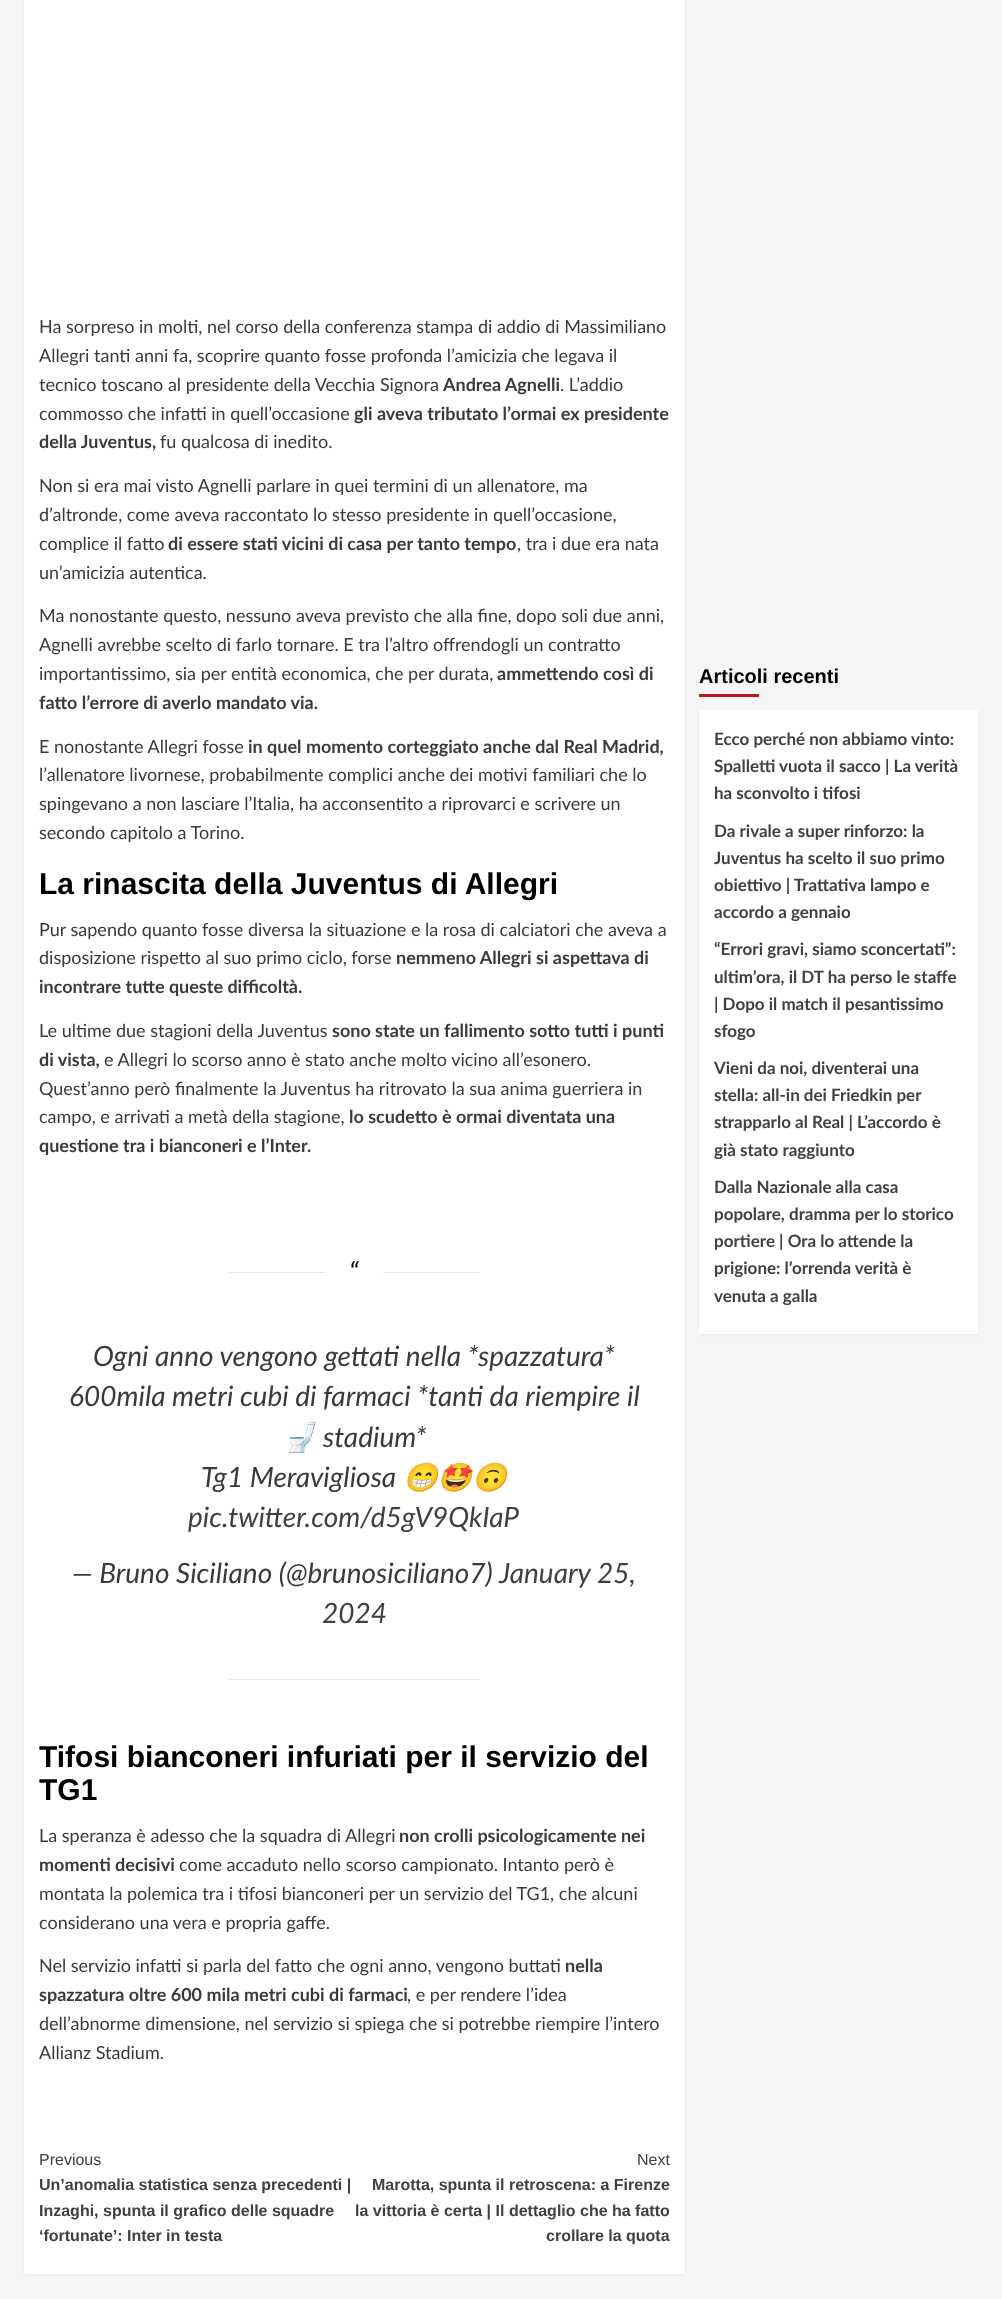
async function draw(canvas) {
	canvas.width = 1002;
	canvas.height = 2299;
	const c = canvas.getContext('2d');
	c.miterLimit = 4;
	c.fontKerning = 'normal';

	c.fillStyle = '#f5f5f5';
	c.fillRect(0, 0, 1002, 2299);
	c.fillStyle = '#0000000d';
	c.filter = 'blur(1px)';
	c.beginPath();
	c.rect(24, -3, 661, 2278);
	c.fill();
	c.filter = 'none';
	c.fillStyle = '#fff';
	c.fillRect(24, 0, 661, 2274);
	c.font = '18px Lato';
	c.fillStyle = '#3a3a3a';
	for (const [text, x, y] of [
		['Ha sorpreso in molti, nel corso della conferenza stampa di addio di Massimiliano', 39, 333],
		['Allegri tanti anni fa, scoprire quanto fosse profonda l’amicizia che legava il', 39, 362],
		['tecnico toscano al presidente della Vecchia Signora', 39, 391],
	]) {
		c.fillText(text, x, y);
	}
	c.font = 'bold 18px Lato';
	c.fillText('Andrea Agnelli', 443, 391);
	c.font = '18px Lato';
	c.fillText('. L’addio', 560, 391);
	c.fillText('commosso che infatti in quell’occasione', 39, 420);
	c.font = 'bold 18px Lato';
	c.fillText('gli aveva tributato l’ormai ex presidente', 354, 420);
	c.fillText('della Juventus,', 39, 448);
	c.font = '18px Lato';
	for (const [text, x, y] of [
		['fu qualcosa di inedito.', 160, 448],
		['Non si era mai visto Agnelli parlare in quei termini di un allenatore, ma', 39, 492],
		['d’altronde, come aveva raccontato lo stesso presidente in quell’occasione,', 39, 521],
		['complice il fatto', 39, 550],
	]) {
		c.fillText(text, x, y);
	}
	c.font = 'bold 18px Lato';
	c.fillText('di essere stati vicini di casa per tanto tempo', 168, 550);
	c.font = '18px Lato';
	for (const [text, x, y] of [
		[', tra i due era nata', 517, 550],
		['un’amicizia autentica.', 39, 579],
		['Ma nonostante questo, nessuno aveva previsto che alla fine, dopo soli due anni,', 39, 622],
		['Agnelli avrebbe scelto di farlo tornare. E tra l’altro offrendogli un contratto', 39, 651],
		['importantissimo, sia per entità economica, che per durata,', 39, 680],
	]) {
		c.fillText(text, x, y);
	}
	c.font = 'bold 18px Lato';
	c.fillText('ammettendo così di', 497, 680);
	c.fillText('fatto l’errore di averlo mandato via.', 39, 709);
	c.font = '18px Lato';
	c.fillText('E nonostante Allegri fosse', 39, 753);
	c.font = 'bold 18px Lato';
	c.fillText('in quel momento corteggiato anche dal Real Madrid,', 248, 753);
	c.font = '18px Lato';
	for (const [text, x, y] of [
		['l’allenatore livornese, probabilmente complici anche dei motivi familiari che lo', 39, 781],
		['spingevano a non lasciare l’Italia, ha acconsentito a riprovarci e scrivere un', 39, 810],
		['secondo capitolo a Torino.', 39, 839],
	]) {
		c.fillText(text, x, y);
	}
	c.font = 'bold 30px Liberation Sans';
	c.fillStyle = '#000';
	c.fillText('La rinascita della Juventus di Allegri', 39, 894);
	c.font = '18px Lato';
	c.fillStyle = '#3a3a3a';
	c.fillText('Pur sapendo quanto fosse diversa la situazione e la rosa di calciatori che aveva a', 39, 936);
	c.fillText('disposizione rispetto al suo primo ciclo, forse', 39, 964);
	c.font = 'bold 18px Lato';
	c.fillText('nemmeno Allegri si aspettava di', 396, 964);
	c.fillText('incontrare tutte queste difficoltà.', 39, 993);
	c.font = '18px Lato';
	c.fillText('Le ultime due stagioni della Juventus', 39, 1037);
	c.font = 'bold 18px Lato';
	c.fillText('sono state un fallimento sotto tutti i punti', 332, 1037);
	c.fillText('di vista,', 39, 1066);
	c.font = '18px Lato';
	for (const [text, x, y] of [
		['e Allegri lo scorso anno è stato anche molto vicino all’esonero.', 104, 1066],
		['Quest’anno però finalmente la Juventus ha ritrovato la sua anima guerriera in', 39, 1095],
		['campo, e arrivati a metà della stagione,', 39, 1123],
	]) {
		c.fillText(text, x, y);
	}
	c.font = 'bold 18px Lato';
	c.fillText('lo scudetto è ormai diventata una', 349, 1123);
	c.fillText('questione tra i bianconeri e l’Inter.', 39, 1152);
	c.fillStyle = '#e5e5e5';
	c.fillRect(228, 1272, 252, 1);
	c.fillStyle = '#fff';
	c.fillRect(325, 1272, 58, 1);
	c.font = 'italic 28px Lato';
	c.fillStyle = '#000';
	c.fillText('“', 349, 1282);
	c.fillStyle = '#e5e5e5';
	c.fillRect(228, 1679, 252, 1);
	c.fillStyle = '#3a3a3a';
	c.fillText('Ogni anno vengono gettati nella *spazzatura*', 93, 1366);
	c.fillText('600mila metri cubi di farmaci *tanti da riempire il', 69, 1406);
	c.font = 'italic 28px Noto Color Emoji';
	c.fillText('🚽', 281, 1447);
	c.font = 'italic 28px Lato';
	c.fillText('stadium*', 323, 1447);
	c.fillText('Tg1 Meravigliosa', 201, 1487);
	c.font = 'italic 28px Noto Color Emoji';
	c.fillText('😁🤩🙃', 403, 1487);
	c.font = 'italic 28px Lato';
	c.fillStyle = '#404040';
	c.fillText('pic.twitter.com/d5gV9QkIaP', 188, 1527);
	c.fillStyle = '#3a3a3a';
	c.fillText('— Bruno Siciliano (@brunosiciliano7)', 72, 1583);
	c.fillStyle = '#404040';
	c.fillText('January 25,', 499, 1583);
	c.fillText('2024', 322, 1623);
	c.font = 'bold 30px Liberation Sans';
	c.fillStyle = '#000';
	c.fillText('Tifosi bianconeri infuriati per il servizio del', 39, 1767);
	c.fillText('TG1', 39, 1800);
	c.font = '18px Lato';
	c.fillStyle = '#3a3a3a';
	c.fillText('La speranza è adesso che la squadra di Allegri', 39, 1842);
	c.font = 'bold 18px Lato';
	c.fillText('non crolli psicologicamente nei', 399, 1842);
	c.fillText('momenti decisivi', 39, 1871);
	c.font = '18px Lato';
	for (const [text, x, y] of [
		['come accaduto nello scorso campionato. Intanto però è', 179, 1871],
		['montata la polemica tra i tifosi bianconeri per un servizio del TG1, che alcuni', 39, 1900],
		['considerano una vera e propria gaffe.', 39, 1929],
		['Nel servizio infatti si parla del fatto che ogni anno, vengono buttati', 39, 1972],
	]) {
		c.fillText(text, x, y);
	}
	c.font = 'bold 18px Lato';
	c.fillText('nella', 565, 1972);
	c.fillText('spazzatura oltre 600 mila metri cubi di farmaci', 39, 2001);
	c.font = '18px Lato';
	for (const [text, x, y] of [
		[', e per rendere l’idea', 407, 2001],
		['dell’abnorme dimensione, nel servizio si spiega che si potrebbe riempire l’intero', 39, 2030],
		['Allianz Stadium.', 39, 2059],
	]) {
		c.fillText(text, x, y);
	}
	c.font = '16px Liberation Sans';
	c.fillStyle = '#404040';
	c.fillText('Previous', 39, 2165);
	c.font = 'bold 16px Liberation Sans';
	for (const [text, x, y] of [
		['Un’anomalia statistica senza precedenti |', 39, 2190],
		['Inzaghi, spunta il grafico delle squadre', 39, 2216],
		['‘fortunate’: Inter in testa', 39, 2241],
	]) {
		c.fillText(text, x, y);
	}
	c.font = '16px Liberation Sans';
	c.fillText('Next', 637, 2165);
	c.font = 'bold 16px Liberation Sans';
	for (const [text, x, y] of [
		['Marotta, spunta il retroscena: a Firenze', 372, 2190],
		['la vittoria è certa | Il dettaglio che ha fatto', 355, 2216],
		['crollare la quota', 546, 2241],
	]) {
		c.fillText(text, x, y);
	}
	c.font = 'bold 20px Liberation Sans';
	c.fillStyle = '#000';
	c.fillText('Articoli recenti', 699, 683);
	c.fillStyle = '#bb1919';
	c.fillRect(699, 694, 60, 3);
	c.fillStyle = '#0000000d';
	c.filter = 'blur(1px)';
	c.beginPath();
	c.rect(699, 711, 279, 624);
	c.fill();
	c.filter = 'none';
	c.fillStyle = '#fff';
	c.fillRect(699, 710, 279, 624);
	c.font = 'bold 17px Lato';
	c.fillStyle = '#404040';
	for (const [text, x, y] of [
		['Ecco perché non abbiamo vinto:', 714, 745],
		['Spalletti vuota il sacco | La verità', 714, 772],
		['ha sconvolto i tifosi', 714, 799],
		['Da rivale a super rinforzo: la', 714, 837],
		['Juventus ha scelto il suo primo', 714, 864],
		['obiettivo | Trattativa lampo e', 714, 891],
		['accordo a gennaio', 714, 918],
		['“Errori gravi, siamo sconcertati”:', 714, 955],
		['ultim’ora, il DT ha perso le staffe', 714, 983],
		['| Dopo il match il pesantissimo', 714, 1010],
		['sfogo', 714, 1037],
		['Vieni da noi, diventerai una', 714, 1074],
		['stella: all-in dei Friedkin per', 714, 1101],
		['strapparlo al Real | L’accordo è', 714, 1128],
		['già stato raggiunto', 714, 1156],
		['Dalla Nazionale alla casa', 714, 1193],
		['popolare, dramma per lo storico', 714, 1220],
		['portiere | Ora lo attende la', 714, 1247],
		['prigione: l’orrenda verità è', 714, 1274],
		['venuta a galla', 714, 1302],
	]) {
		c.fillText(text, x, y);
	}
}

draw(document.querySelector('canvas'));
